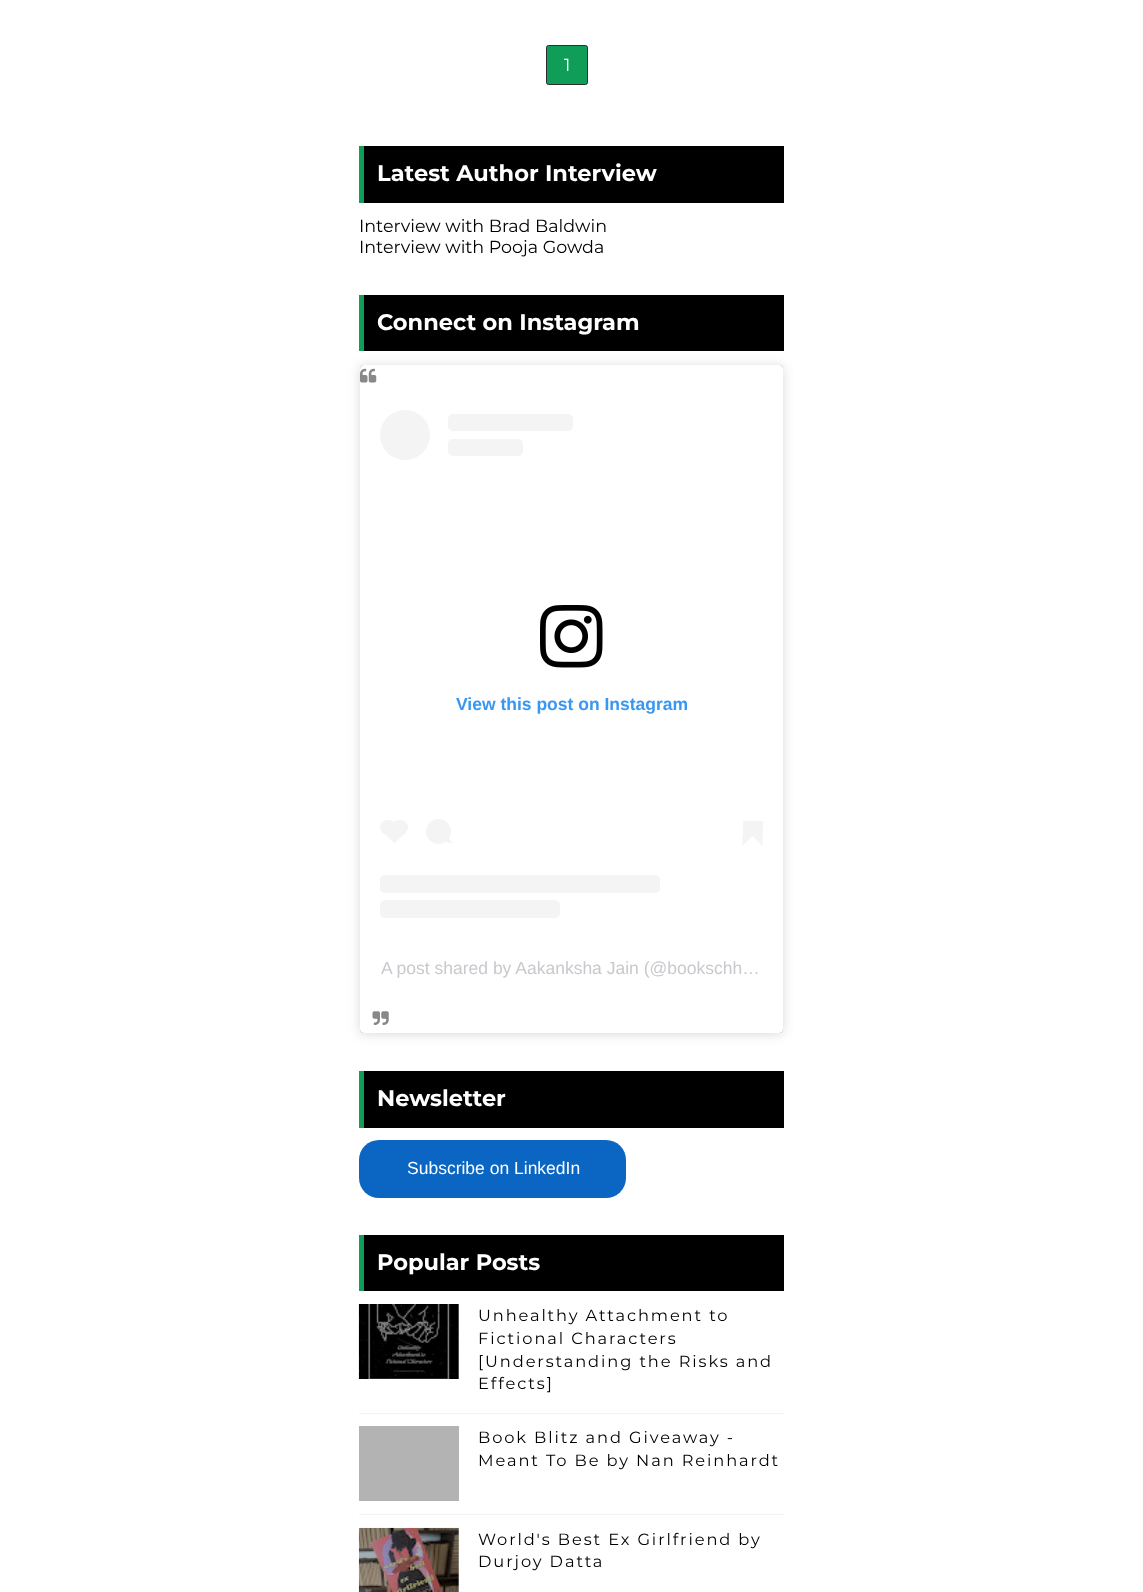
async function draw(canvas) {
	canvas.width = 1143;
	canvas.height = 1592;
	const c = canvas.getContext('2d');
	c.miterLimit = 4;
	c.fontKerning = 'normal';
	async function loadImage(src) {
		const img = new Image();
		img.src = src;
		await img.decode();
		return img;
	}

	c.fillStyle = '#fff';
	c.fillRect(0, 0, 1143, 1592);
	c.fillStyle = '#0f9d58';
	c.beginPath();
	c.roundRect(546.5, 45.5, 41, 39, 2);
	c.fill();
	c.strokeStyle = '#2d2d2d';
	c.stroke();
	c.font = '17.5px Montserrat';
	c.fillStyle = '#fff';
	c.fillText('1', 564, 71);
	c.fillStyle = '#000';
	c.fillRect(364, 146, 420, 57);
	c.fillStyle = '#0f9d58';
	c.fillRect(359, 146, 5, 57);
	c.font = 'bold 22.5px Montserrat';
	c.fillStyle = '#fff';
	c.fillText('Latest Author Interview', 377, 181);
	c.font = '17.5px Montserrat';
	c.fillStyle = '#000';
	c.fillText('Interview with Brad Baldwin', 359, 232);
	c.fillText('Interview with Pooja Gowda', 359, 253);
	c.fillStyle = '#00000026';
	c.filter = 'blur(6px)';
	c.beginPath();
	c.roundRect(360, 366, 423, 668, 4);
	c.fill();
	c.filter = 'none';
	c.fillStyle = '#000';
	c.fillRect(364, 295, 420, 56);
	c.fillStyle = '#0f9d58';
	c.fillRect(359, 295, 5, 56);
	c.font = 'bold 22.5px Montserrat';
	c.fillStyle = '#fff';
	c.fillText('Connect on Instagram', 377, 330);
	c.fillStyle = '#00000080';
	c.filter = 'blur(0.5px)';
	c.beginPath();
	c.roundRect(360, 365, 423, 668, 4);
	c.fill();
	c.filter = 'none';
	c.fillStyle = '#fff';
	c.beginPath();
	c.roundRect(360, 365, 423, 668, 4);
	c.fill();
	c.drawImage(await loadImage('img1.png'), 360, 368, 17, 15);
	c.fillStyle = '#f4f4f4';
	c.beginPath();
	c.arc(405, 435, 25, 0, 2 * Math.PI);
	c.fill();
	c.beginPath();
	c.roundRect(448, 414, 125, 17, 5);
	c.fill();
	c.beginPath();
	c.roundRect(448, 439, 75, 17, 5);
	c.fill();
	c.drawImage(await loadImage('img2.png'), 540, 605, 63, 63);
	c.font = 'bold 17.5px Liberation Sans';
	c.fillStyle = '#3897f0';
	c.fillText('View this post on Instagram', 456, 710);
	c.fillStyle = '#f4f4f4';
	c.beginPath();
	c.roundRect(380, 820, 16, 15, 7.5);
	c.fill();
	c.beginPath();
	c.moveTo(383.5, 832.5);
	c.lineTo(394.5, 821);
	c.lineTo(405.5, 832.5);
	c.lineTo(394.5, 843.5);
	c.closePath();
	c.fill();
	c.beginPath();
	c.roundRect(391, 820, 17, 15, 7.5);
	c.fill();
	c.beginPath();
	c.arc(438.5, 831.5, 12.5, 0, 2 * Math.PI);
	c.fill();
	c.beginPath();
	c.moveTo(445.5, 842);
	c.lineTo(448, 837.5);
	c.lineTo(453, 843.5);
	c.closePath();
	c.fill();
	c.fillRect(743, 821, 20, 15);
	c.beginPath();
	c.moveTo(742.5, 836);
	c.lineTo(752.5, 836);
	c.lineTo(742.5, 846);
	c.closePath();
	c.fill();
	c.beginPath();
	c.moveTo(752.5, 836);
	c.lineTo(762.5, 836);
	c.lineTo(762.5, 846);
	c.closePath();
	c.fill();
	c.beginPath();
	c.roundRect(380, 875, 280, 18, 5);
	c.fill();
	c.beginPath();
	c.roundRect(380, 900, 180, 18, 5);
	c.fill();
	c.font = '17.5px Liberation Sans';
	c.fillStyle = '#c9c8cd';
	c.fillText('A post shared by Aakanksha Jain (@bookschh…', 381, 974);
	c.drawImage(await loadImage('img3.png'), 372, 1011, 17, 14);
	c.fillStyle = '#000';
	c.fillRect(364, 1071, 420, 57);
	c.fillStyle = '#0f9d58';
	c.fillRect(359, 1071, 5, 57);
	c.font = 'bold 22.5px Montserrat';
	c.fillStyle = '#fff';
	c.fillText('Newsletter', 377, 1106);
	c.fillStyle = '#0a66c2';
	c.beginPath();
	c.roundRect(359, 1140, 267, 58, 20);
	c.fill();
	c.font = '17.5px Liberation Sans';
	c.fillStyle = '#fff';
	c.fillText('Subscribe on LinkedIn', 407, 1174);
	c.fillStyle = '#000';
	c.fillRect(364, 1235, 420, 56);
	c.fillStyle = '#0f9d58';
	c.fillRect(359, 1235, 5, 56);
	c.font = 'bold 22.5px Montserrat';
	c.fillStyle = '#fff';
	c.fillText('Popular Posts', 377, 1270);
	c.drawImage(await loadImage('img4.png'), 358, 1304, 101, 75);
	c.fillStyle = '#0000004d';
	c.fillRect(359, 1304, 100, 75);
	c.letterSpacing = '1.9px';
	c.font = '16.25px Montserrat';
	c.fillStyle = '#000';
	for (const [text, x, y] of [
		['Unhealthy Attachment to', 478, 1321],
		['Fictional Characters', 478, 1344],
		['[Understanding the Risks and', 478, 1367],
		['Effects]', 478, 1389],
	]) {
		c.fillText(text, x, y);
	}
	c.fillStyle = '#f2f2f2';
	c.fillRect(359, 1413, 425, 1);
	c.fillStyle = '#b3b3b3';
	c.fillRect(359, 1426, 100, 75);
	c.fillStyle = '#000';
	c.fillText('Book Blitz and Giveaway -', 478, 1443);
	c.fillText('Meant To Be by Nan Reinhardt', 478, 1466);
	c.fillStyle = '#f2f2f2';
	c.fillRect(359, 1514, 425, 1);
	c.drawImage(await loadImage('img5.png'), 358, 1527, 101, 65);
	c.fillStyle = '#0000004d';
	c.fillRect(359, 1528, 100, 64);
	c.fillStyle = '#000';
	c.fillText('World\'s Best Ex Girlfriend by', 478, 1545);
	c.fillText('Durjoy Datta', 478, 1567);
}

draw(document.querySelector('canvas'));
